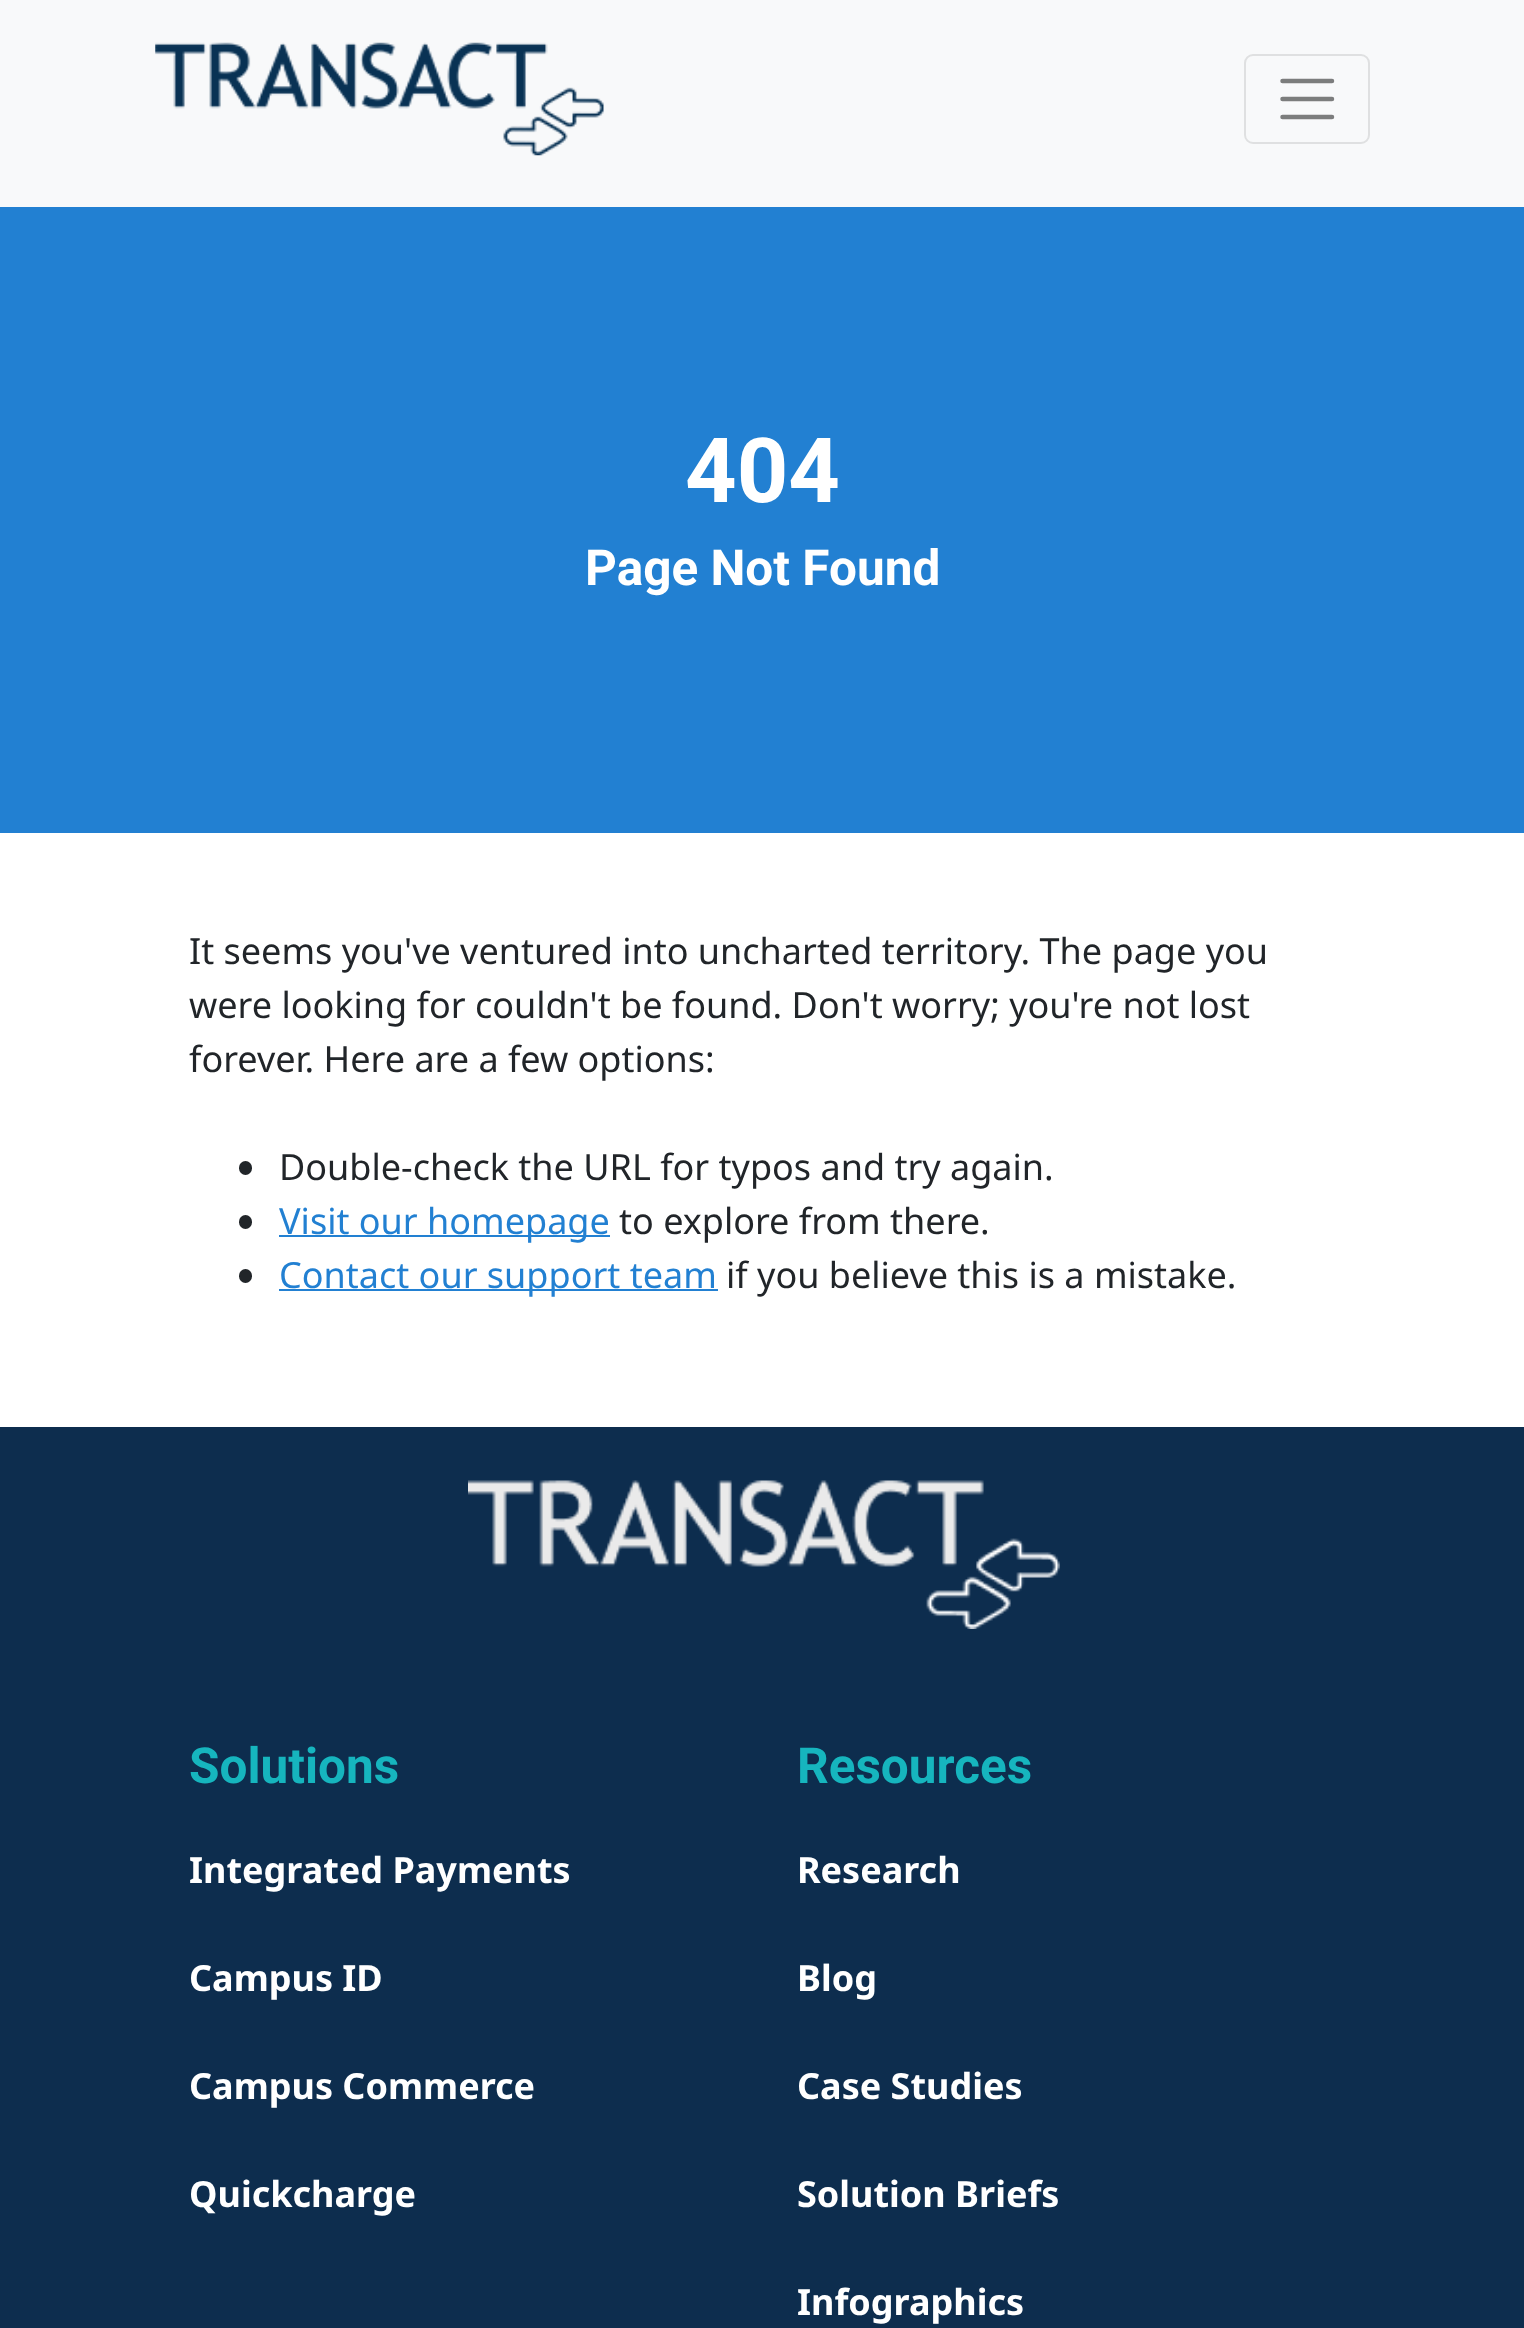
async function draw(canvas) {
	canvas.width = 1524;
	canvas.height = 2328;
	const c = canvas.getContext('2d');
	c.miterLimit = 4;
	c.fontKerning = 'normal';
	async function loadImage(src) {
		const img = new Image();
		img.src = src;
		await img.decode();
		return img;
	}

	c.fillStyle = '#fff';
	c.fillRect(0, 0, 1524, 2328);
	c.fillStyle = '#f8f9fa';
	c.fillRect(0, 0, 1524, 207);
	c.drawImage(await loadImage('img1.png'), 155, 42, 449, 114);
	c.beginPath();
	c.roundRect(1245, 55, 124, 88, 8);
	c.strokeStyle = '#dfe0e1';
	c.lineWidth = 2;
	c.stroke();
	c.beginPath();
	c.moveTo(1282.5, 81);
	c.lineTo(1332, 81);
	c.moveTo(1282.5, 99);
	c.lineTo(1332, 99);
	c.moveTo(1282.5, 117);
	c.lineTo(1332, 117);
	c.strokeStyle = '#7c7d7d';
	c.lineWidth = 4.5;
	c.lineCap = 'round';
	c.stroke();
	c.fillStyle = '#2280d2';
	c.fillRect(0, 207, 1524, 626);
	c.font = 'bold 90px Roboto';
	c.fillStyle = '#fff';
	c.fillText('404', 685, 502);
	c.font = 'bold 49.5px Roboto';
	c.fillText('Page Not Found', 585, 585);
	c.font = '36px Noto Sans';
	c.fillStyle = '#212529';
	for (const [text, x, y] of [
		['It seems you\'ve ventured into uncharted territory. The page you', 189, 964],
		['were looking for couldn\'t be found. Don\'t worry; you\'re not lost', 189, 1018],
		['forever. Here are a few options:', 189, 1072],
	]) {
		c.fillText(text, x, y);
	}
	c.beginPath();
	c.roundRect(239, 1161, 13, 14, 6.5);
	c.fill();
	c.fillText('Double-check the URL for typos and try again.', 279, 1180);
	c.beginPath();
	c.roundRect(239, 1215, 13, 14, 6.5);
	c.fill();
	c.fillStyle = '#2280d2';
	c.fillRect(279, 1235, 331, 2);
	c.fillText('Visit our homepage', 279, 1234);
	c.fillStyle = '#212529';
	c.fillText('to explore from there.', 619, 1234);
	c.beginPath();
	c.roundRect(239, 1269, 13, 14, 6.5);
	c.fill();
	c.fillStyle = '#2280d2';
	c.fillRect(279, 1289, 439, 2);
	c.fillText('Contact our support team', 279, 1288);
	c.fillStyle = '#212529';
	c.fillText('if you believe this is a mistake.', 726, 1288);
	c.fillStyle = '#0d2d4e';
	c.fillRect(0, 1427, 1524, 901);
	c.drawImage(await loadImage('img2.png'), 468, 1480, 592, 149);
	c.font = 'bold 49.5px Roboto';
	c.fillStyle = '#16b5be';
	c.fillText('Solutions', 189, 1783);
	c.font = 'bold 36px Noto Sans';
	c.fillStyle = '#fff';
	for (const [text, x, y] of [
		['Integrated Payments', 189, 1883],
		['Campus ID', 189, 1991],
		['Campus Commerce', 189, 2099],
		['Quickcharge', 189, 2207],
	]) {
		c.fillText(text, x, y);
	}
	c.font = 'bold 49.5px Roboto';
	c.fillStyle = '#16b5be';
	c.fillText('Resources', 797, 1783);
	c.font = 'bold 36px Noto Sans';
	c.fillStyle = '#fff';
	for (const [text, x, y] of [
		['Research', 797, 1883],
		['Blog', 797, 1991],
		['Case Studies', 797, 2099],
		['Solution Briefs', 797, 2207],
		['Infographics', 797, 2315],
	]) {
		c.fillText(text, x, y);
	}
}

draw(document.querySelector('canvas'));
